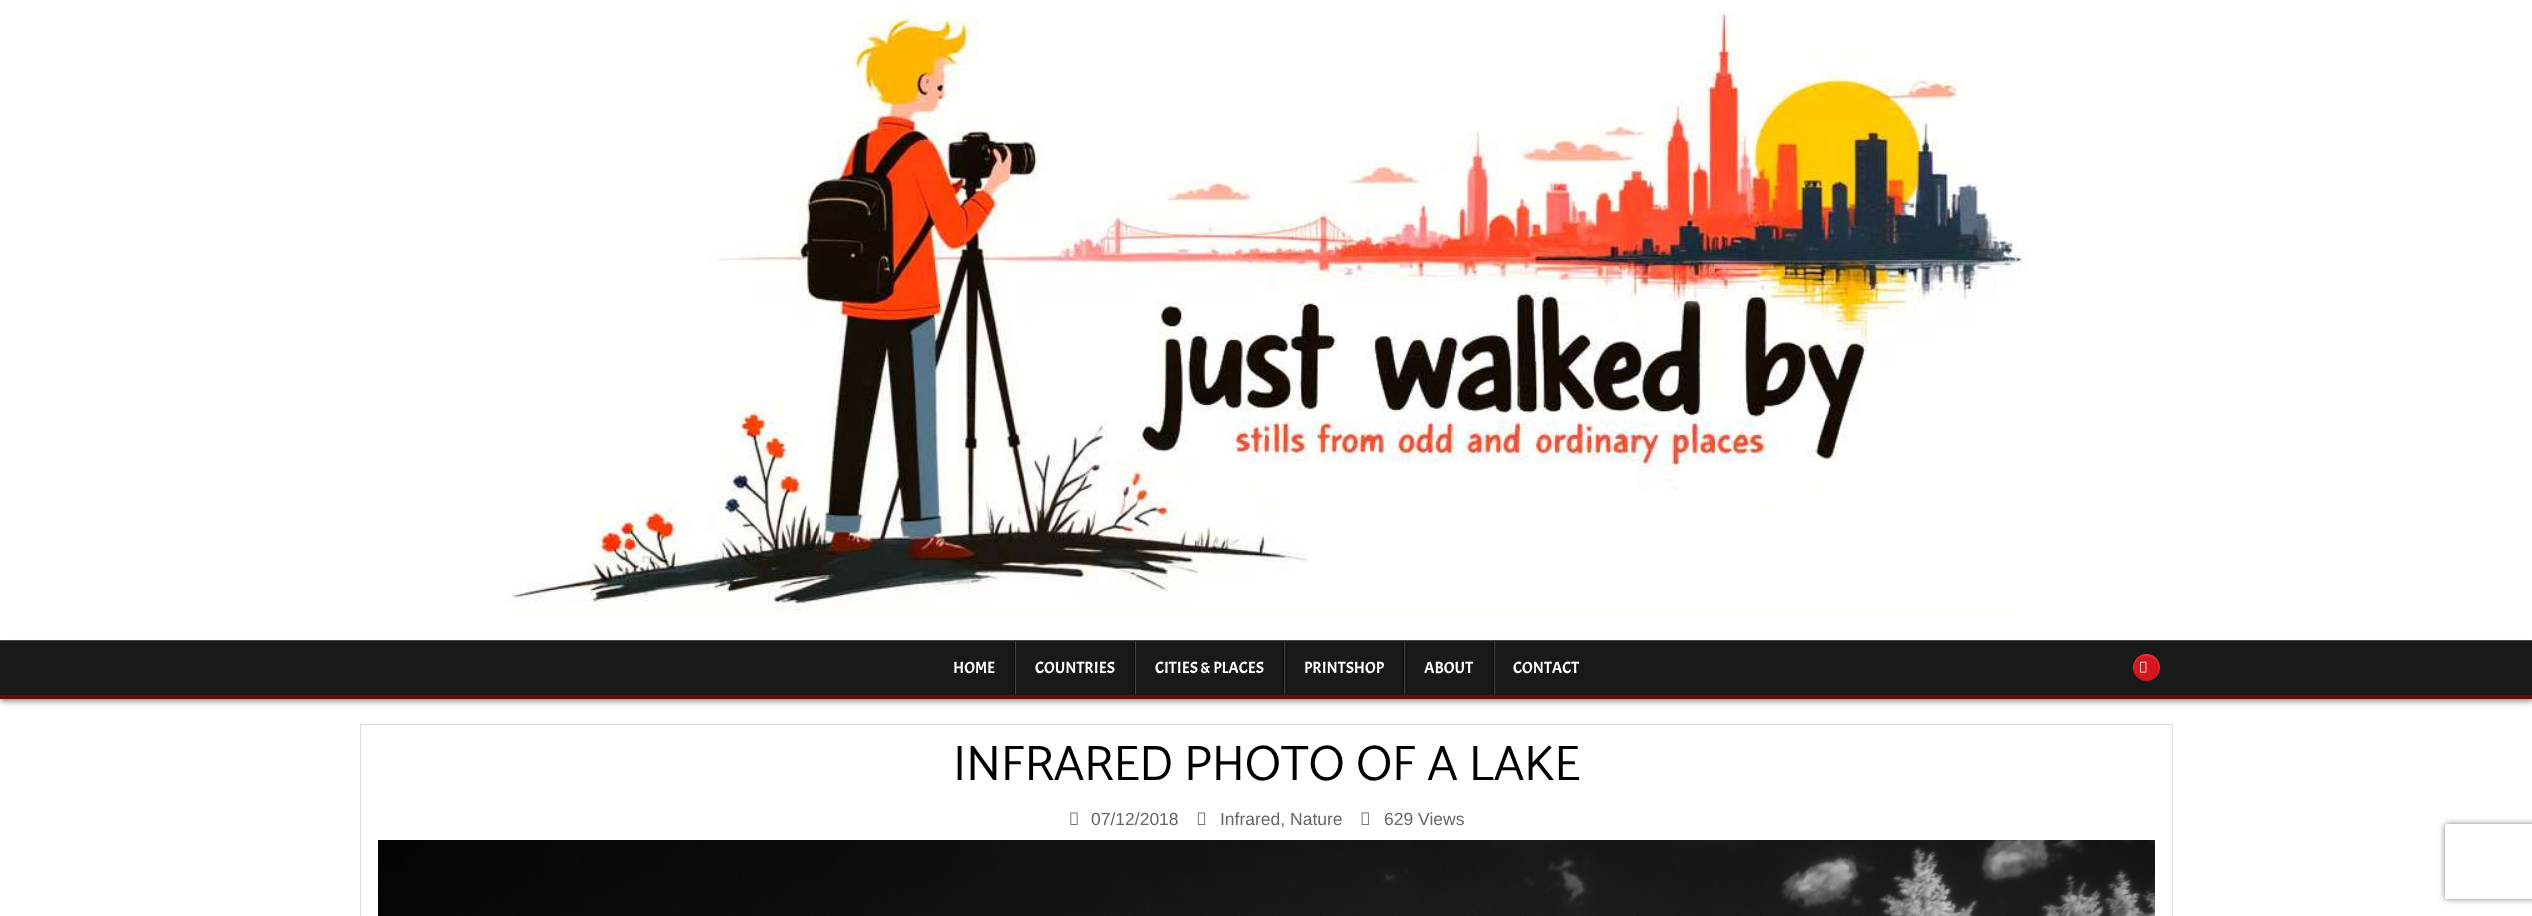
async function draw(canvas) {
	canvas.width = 2532;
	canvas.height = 916;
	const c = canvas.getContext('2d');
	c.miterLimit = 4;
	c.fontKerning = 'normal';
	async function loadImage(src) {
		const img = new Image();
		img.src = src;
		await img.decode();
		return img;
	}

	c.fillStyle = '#fff';
	c.fillRect(0, 0, 2532, 916);
	c.fillStyle = '#00000080';
	c.filter = 'blur(3px)';
	c.beginPath();
	c.rect(0, 643, 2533, 58);
	c.fill();
	c.filter = 'none';
	c.fillStyle = '#fff';
	c.fillRect(0, 637, 2532, 3);
	c.drawImage(await loadImage('img1.png'), 507, 11, 1521, 603);
	for (const [x, y, w, h, color] of [
		[0, 641, 2532, 54, '#191919'],
		[0, 640, 2532, 1, '#4c4949'],
		[0, 695, 2532, 4, '#660809'],
		[1014, 641, 1, 54, '#090909'],
	]) {
		c.fillStyle = color;
		c.fillRect(x, y, w, h);
	}
	c.font = '16.25px Acme';
	c.fillStyle = '#fff';
	c.fillText('HOME', 953, 673);
	c.fillStyle = '#090909';
	c.fillRect(1134, 641, 1, 54);
	c.fillStyle = '#444';
	c.fillRect(1015, 641, 1, 54);
	c.fillStyle = '#fff';
	c.fillText('COUNTRIES', 1035, 673);
	c.fillStyle = '#090909';
	c.fillRect(1283, 641, 1, 54);
	c.fillStyle = '#444';
	c.fillRect(1135, 641, 1, 54);
	c.fillStyle = '#fff';
	c.fillText('CITIES & PLACES', 1155, 673);
	c.fillStyle = '#090909';
	c.fillRect(1403, 641, 1, 54);
	c.fillStyle = '#444';
	c.fillRect(1284, 641, 1, 54);
	c.fillStyle = '#fff';
	c.fillText('PRINTSHOP', 1304, 673);
	c.fillStyle = '#090909';
	c.fillRect(1493, 641, 1, 54);
	c.fillStyle = '#444';
	c.fillRect(1404, 641, 1, 54);
	c.fillStyle = '#fff';
	c.fillText('ABOUT', 1424, 673);
	c.fillStyle = '#444';
	c.fillRect(1494, 641, 1, 54);
	c.fillStyle = '#fff';
	c.fillText('CONTACT', 1513, 673);
	c.fillStyle = '#d5171d';
	c.beginPath();
	c.arc(2146.5, 667.5, 13.5, 0, 2 * Math.PI);
	c.fill();
	c.fillStyle = '#ffffff24';
	c.beginPath();
	c.moveTo(2146, 656);
	c.bezierCurveTo(2163, 656, 2163, 680.5, 2146.5, 681);
	c.bezierCurveTo(2151, 681, 2155, 679, 2157.5, 675);
	c.bezierCurveTo(2159.5, 672, 2160.5, 668.5, 2159.5, 665);
	c.bezierCurveTo(2156.5, 649, 2134, 651, 2133, 667.5);
	c.bezierCurveTo(2133, 671, 2134.5, 674.5, 2137, 677);
	c.bezierCurveTo(2131, 670, 2134, 656, 2146, 656);
	c.closePath();
	c.fill();
	c.drawImage(await loadImage('img2.png'), 2140, 661, 7, 12);
	c.strokeStyle = '#ddd';
	c.strokeRect(360.5, 724.5, 1812, 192);
	c.letterSpacing = '-0.25px';
	c.font = '50px Catamaran';
	c.fillStyle = '#000';
	c.fillText('INFRARED PHOTO OF A LAKE', 953, 780);
	c.drawImage(await loadImage('img3.png'), 1070, 812, 8, 13);
	c.letterSpacing = '0px';
	c.font = '17.5px Liberation Sans';
	c.fillStyle = '#666';
	c.fillText('07/12/2018', 1091, 825);
	c.drawImage(await loadImage('img4.png'), 1197, 812, 9, 13);
	c.fillText('Infrared, Nature', 1220, 825);
	c.drawImage(await loadImage('img5.png'), 1361, 812, 8, 13);
	c.fillText('629 Views', 1384, 825);
	c.drawImage(await loadImage('img6.png'), 378, 840, 1777, 76);
	c.save();
	c.beginPath();
	c.moveTo(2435, 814);
	c.lineTo(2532, 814);
	c.lineTo(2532, 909);
	c.lineTo(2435, 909);
	c.closePath();
	c.moveTo(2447.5, 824);
	c.lineTo(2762.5, 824);
	c.bezierCurveTo(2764, 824, 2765, 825, 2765, 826.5);
	c.lineTo(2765, 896.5);
	c.bezierCurveTo(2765, 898, 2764, 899, 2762.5, 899);
	c.lineTo(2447.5, 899);
	c.bezierCurveTo(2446, 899, 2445, 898, 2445, 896.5);
	c.lineTo(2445, 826.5);
	c.bezierCurveTo(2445, 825, 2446, 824, 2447.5, 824);
	c.closePath();
	c.clip('evenodd');
	c.fillStyle = '#808080';
	c.filter = 'blur(3px)';
	c.beginPath();
	c.roundRect(2445, 824, 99, 75, 2.5);
	c.fill();
	c.filter = 'none';
	c.restore();
}

draw(document.querySelector('canvas'));
